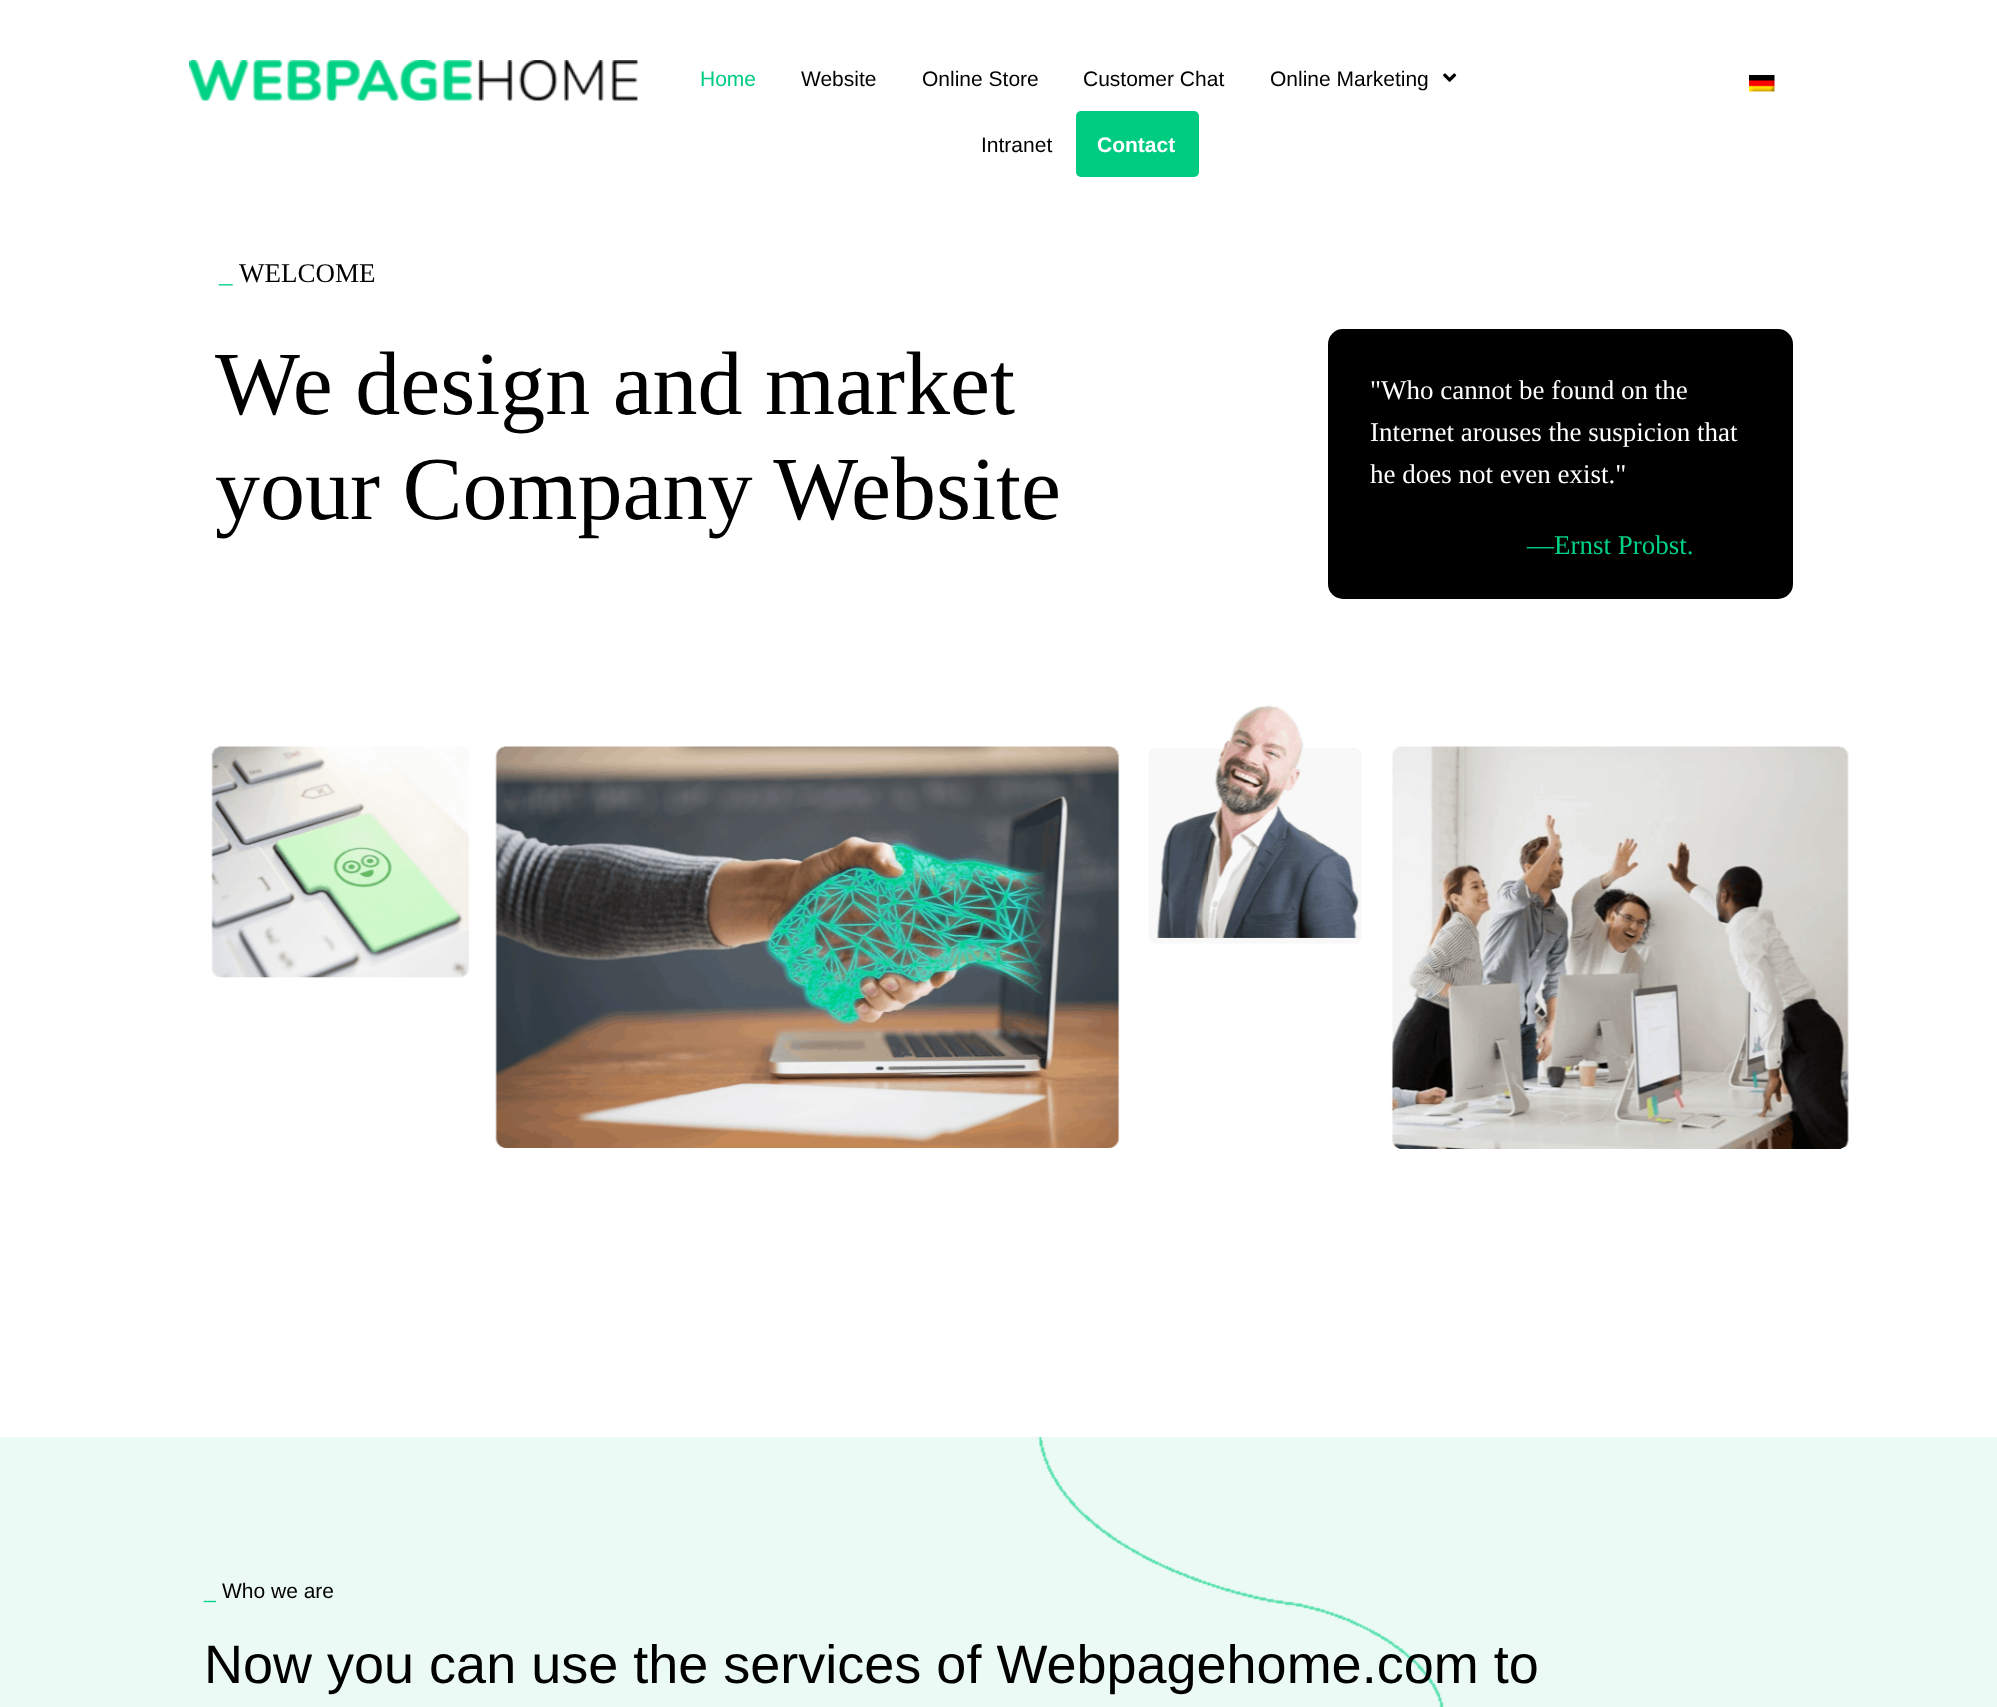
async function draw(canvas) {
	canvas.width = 1997;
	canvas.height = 1707;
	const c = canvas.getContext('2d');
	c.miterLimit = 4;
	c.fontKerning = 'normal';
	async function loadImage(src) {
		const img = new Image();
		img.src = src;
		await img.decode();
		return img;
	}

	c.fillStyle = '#fff';
	c.fillRect(0, 0, 1997, 1707);
	c.drawImage(await loadImage('img1.png'), 189, 60, 449, 41);
	c.font = '21px Liberation Sans';
	c.fillStyle = '#00cc81';
	c.fillText('Home', 700, 86);
	c.fillStyle = '#000';
	for (const [text, x, y] of [
		['Website', 801, 86],
		['Online Store', 922, 86],
		['Customer Chat', 1083, 86],
		['Online Marketing', 1270, 86],
	]) {
		c.fillText(text, x, y);
	}
	c.drawImage(await loadImage('img2.png'), 1443, 73, 14, 9);
	c.fillText('Intranet', 981, 152);
	c.fillStyle = '#00cc81';
	c.beginPath();
	c.roundRect(1076, 111, 123, 66, 5);
	c.fill();
	c.font = 'bold 21px Liberation Sans';
	c.fillStyle = '#fff';
	c.fillText('Contact', 1097, 152);
	c.drawImage(await loadImage('img3.png'), 1749, 75, 26, 17);
	c.font = '27px Liberation Serif';
	c.fillStyle = '#000';
	c.fillText('WELCOME', 239, 282);
	c.fillStyle = '#00d285';
	c.fillText('_', 219, 282);
	c.font = '90px Liberation Serif';
	c.fillStyle = '#000';
	c.fillText('We design and market', 215, 414);
	c.fillText('your Company Website', 215, 519);
	c.beginPath();
	c.roundRect(1328, 329, 465, 270, 15);
	c.fill();
	c.font = '27px Liberation Serif';
	c.fillStyle = '#fff';
	for (const [text, x, y] of [
		['"Who cannot be found on the', 1370, 399],
		['Internet arouses the suspicion that', 1370, 441],
		['he does not even exist."', 1370, 483],
	]) {
		c.fillText(text, x, y);
	}
	c.fillStyle = '#00d285';
	c.fillText('—Ernst Probst.', 1527, 554);
	c.drawImage(await loadImage('img4.png'), 211, 705, 1638, 444);
	c.fillStyle = '#ebfaf4';
	c.fillRect(0, 1437, 1997, 270);
	c.drawImage(await loadImage('img5.png'), 1038, 1437, 406, 270);
	c.font = '21px Liberation Sans';
	c.fillStyle = '#000';
	c.fillText('Who we are', 222, 1598);
	c.fillStyle = '#00d285';
	c.fillText('_', 204, 1598);
	c.font = '54px Liberation Sans';
	c.fillStyle = '#000';
	c.fillText('Now you can use the services of Webpagehome.com to', 204, 1683);
}

draw(document.querySelector('canvas'));
